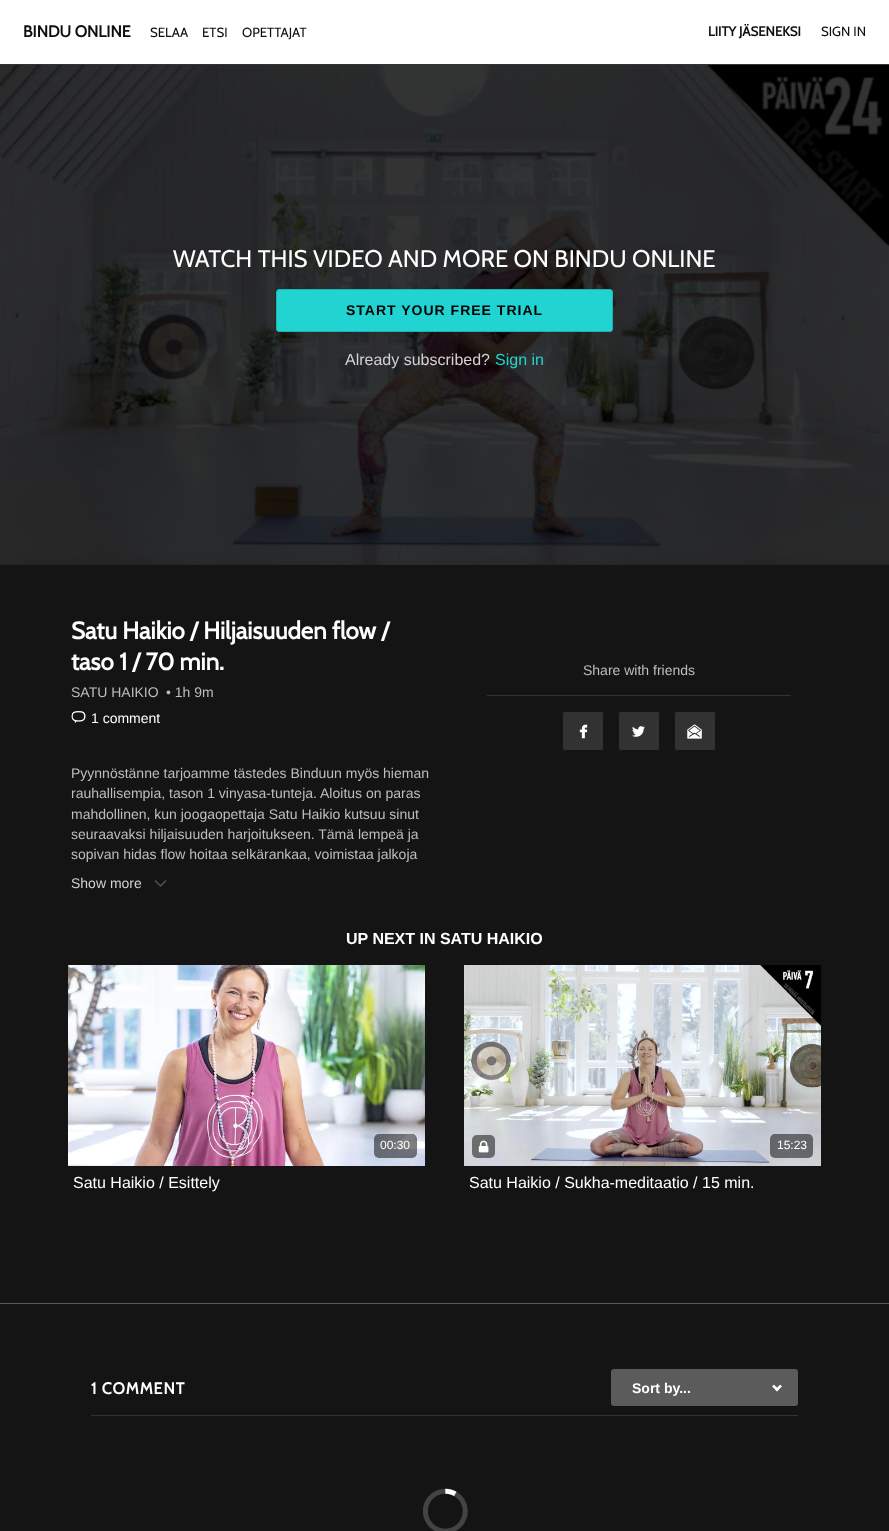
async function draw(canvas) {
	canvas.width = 889;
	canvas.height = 1531;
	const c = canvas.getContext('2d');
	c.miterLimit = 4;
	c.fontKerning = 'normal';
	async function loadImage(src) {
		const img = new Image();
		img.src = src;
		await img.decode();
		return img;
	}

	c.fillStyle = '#141414';
	c.fillRect(0, 0, 889, 1531);
	c.fillStyle = '#fff';
	c.fillRect(0, 0, 889, 64);
	c.fillStyle = '#323232';
	c.fillRect(0, 64, 889, 1);
	c.font = 'bold 16px Cabin';
	c.fillStyle = '#0f0e0e';
	c.fillText('BINDU ONLINE', 23, 37);
	c.font = '13.25px Cabin';
	for (const [text, x, y] of [
		['SELAA', 150, 37],
		['ETSI', 202, 37],
		['OPETTAJAT', 242, 37],
	]) {
		c.fillText(text, x, y);
	}
	c.font = 'bold 13.25px Cabin';
	c.fillText('LIITY JÄSENEKSI', 708, 36);
	c.font = '13.25px Cabin';
	c.fillText('SIGN IN', 821, 36);
	c.drawImage(await loadImage('img1.png'), 0, 65, 889, 500);
	c.font = '24px Cabin';
	c.fillStyle = '#fff';
	c.fillText('WATCH THIS VIDEO AND MORE ON BINDU ONLINE', 173, 267);
	c.fillStyle = '#22d4d1';
	c.beginPath();
	c.roundRect(276.5, 289.5, 336, 42, 2.5);
	c.fill();
	c.strokeStyle = '#1db4b2';
	c.stroke();
	c.letterSpacing = '1px';
	c.font = 'bold 14px Liberation Sans';
	c.fillStyle = '#000';
	c.fillText('START YOUR FREE TRIAL', 346, 315);
	c.letterSpacing = '0px';
	c.font = '16px Liberation Sans';
	c.fillStyle = '#d3d2d2';
	c.fillText('Already subscribed?', 345, 365);
	c.fillStyle = '#22d4d1';
	c.fillText('Sign in', 495, 365);
	c.fillStyle = '#5b5b5b';
	c.fillRect(0, 1303, 889, 1);
	c.font = 'bold 24px Cabin';
	c.fillStyle = '#fff';
	c.fillText('Satu Haikio / Hiljaisuuden flow /', 71, 639);
	c.fillText('taso 1 / 70 min.', 71, 670);
	c.font = '14px Liberation Sans';
	c.fillStyle = '#bebebb';
	c.fillText('SATU HAIKIO', 71, 697);
	c.fillText('• 1h 9m', 166, 697);
	c.drawImage(await loadImage('img2.png'), 71, 711, 15, 13);
	c.fillStyle = '#fff';
	c.fillText('1 comment', 91, 723);
	c.fillStyle = '#bebebb';
	for (const [text, x, y] of [
		['Pyynnöstänne tarjoamme tästedes Binduun myös hieman', 71, 778],
		['rauhallisempia, tason 1 vinyasa-tunteja. Aloitus on paras', 71, 798],
		['mahdollinen, kun joogaopettaja Satu Haikio kutsuu sinut', 71, 819],
		['seuraavaksi hiljaisuuden harjoitukseen. Tämä lempeä ja', 71, 839],
		['sopivan hidas flow hoitaa selkärankaa, voimistaa jalkoja', 71, 859],
	]) {
		c.fillText(text, x, y);
	}
	c.fillStyle = '#d3d2d2';
	c.fillText('Show more', 71, 888);
	c.drawImage(await loadImage('img3.png'), 154, 880, 13, 7);
	c.fillStyle = '#323232';
	c.fillRect(487, 695, 304, 1);
	c.fillStyle = '#bebebb';
	c.fillText('Share with friends', 583, 675);
	c.fillStyle = '#323232';
	c.beginPath();
	c.roundRect(562, 711, 42, 40, 3);
	c.fill();
	c.drawImage(await loadImage('img4.png'), 579, 724, 9, 15);
	c.beginPath();
	c.roundRect(562.5, 711.5, 41, 39, 2.5);
	c.strokeStyle = '#141414';
	c.stroke();
	c.beginPath();
	c.roundRect(618, 711, 42, 40, 3);
	c.fill();
	c.drawImage(await loadImage('img5.png'), 632, 726, 13, 11);
	c.beginPath();
	c.roundRect(618.5, 711.5, 41, 39, 2.5);
	c.stroke();
	c.beginPath();
	c.roundRect(674, 711, 42, 40, 3);
	c.fill();
	c.drawImage(await loadImage('img6.png'), 687, 724, 15, 15);
	c.beginPath();
	c.roundRect(674.5, 711.5, 41, 39, 2.5);
	c.stroke();
	c.font = 'bold 16px Liberation Sans';
	c.fillStyle = '#fff';
	c.fillText('UP NEXT IN SATU HAIKIO', 346, 944);
	c.drawImage(await loadImage('img7.png'), 68, 965, 357, 201);
	c.fillStyle = '#00000080';
	c.beginPath();
	c.roundRect(374, 1134, 43, 24, 5);
	c.fill();
	c.font = '12px Liberation Sans';
	c.fillStyle = '#fff';
	c.fillText('00:30', 380, 1149);
	c.font = '16px Liberation Sans';
	c.fillText('Satu Haikio / Esittely', 73, 1188);
	c.drawImage(await loadImage('img8.png'), 464, 965, 357, 201);
	c.fillStyle = '#00000080';
	c.beginPath();
	c.roundRect(472, 1135, 23, 23, 5);
	c.fill();
	c.drawImage(await loadImage('img9.png'), 478, 1140, 11, 13);
	c.beginPath();
	c.roundRect(770, 1134, 43, 24, 5);
	c.fill();
	c.font = '12px Liberation Sans';
	c.fillStyle = '#fff';
	c.fillText('15:23', 777, 1149);
	c.font = '16px Liberation Sans';
	c.fillText('Satu Haikio / Sukha-meditaatio / 15 min.', 469, 1188);
	c.fillStyle = '#323232';
	c.fillRect(91, 1415, 707, 1);
	c.letterSpacing = '1px';
	c.font = 'bold 16px Cabin';
	c.fillStyle = '#fff';
	c.fillText('1 COMMENT', 91, 1394);
	c.fillStyle = '#5b5b5b';
	c.beginPath();
	c.roundRect(611, 1369, 187, 37, 3);
	c.fill();
	c.drawImage(await loadImage('img10.png'), 772, 1384, 10, 8);
	c.letterSpacing = '0px';
	c.font = 'bold 14px Liberation Sans';
	c.fillStyle = '#fff';
	c.fillText('Sort by...', 632, 1393);
	c.drawImage(await loadImage('img11.png'), 423, 1488, 45, 43);
}

draw(document.querySelector('canvas'));
